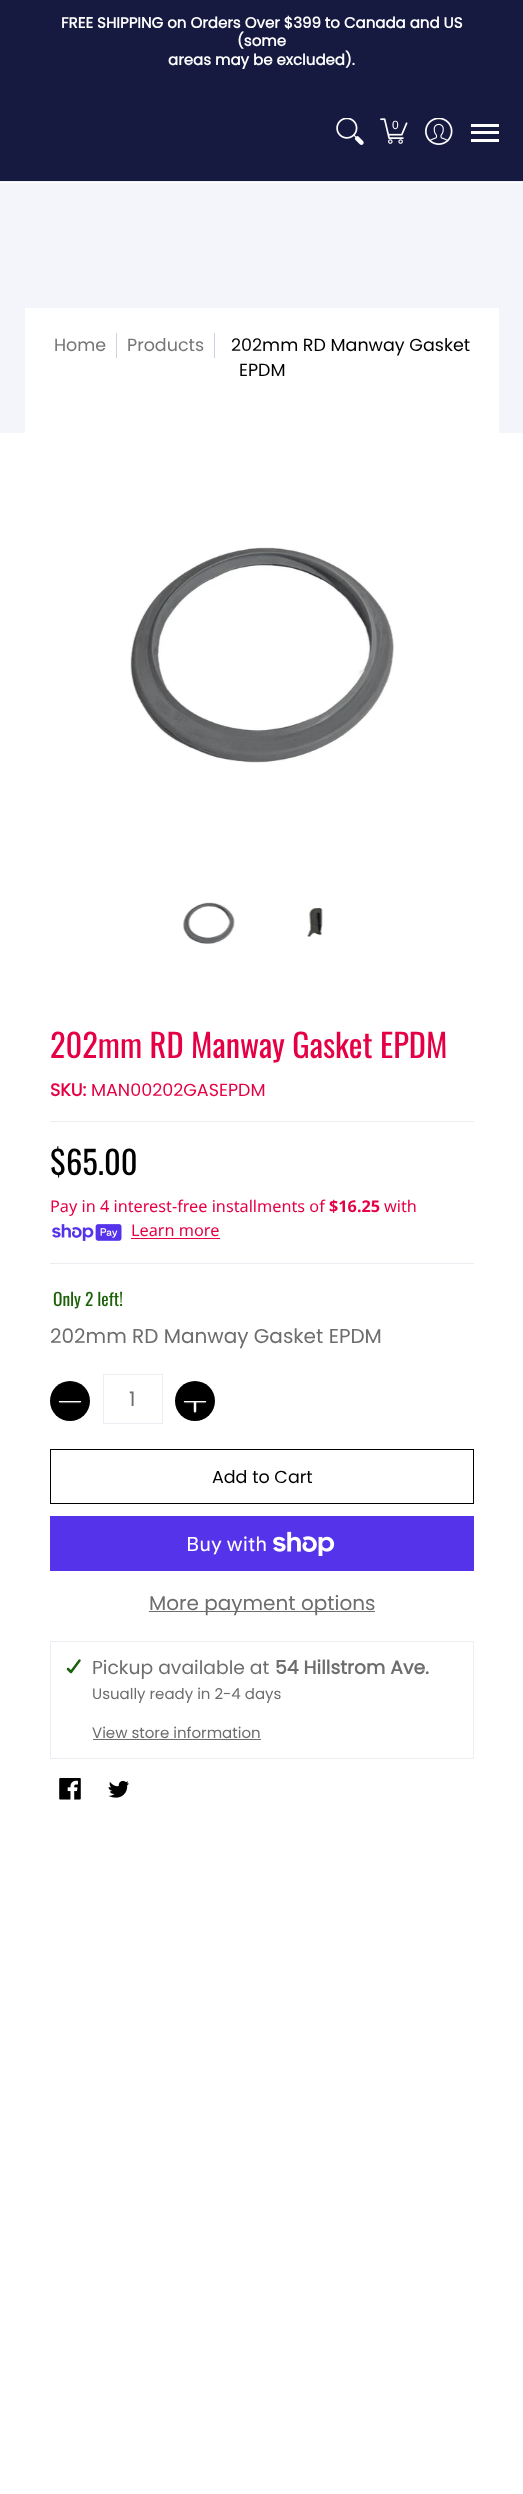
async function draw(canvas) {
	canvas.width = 523;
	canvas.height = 2494;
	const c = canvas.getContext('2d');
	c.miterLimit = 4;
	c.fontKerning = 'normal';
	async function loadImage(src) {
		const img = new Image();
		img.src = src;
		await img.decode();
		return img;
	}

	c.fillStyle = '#fff';
	c.fillRect(0, 0, 523, 2494);
	c.fillStyle = '#161a40';
	c.fillRect(0, 0, 523, 181);
	c.font = 'bold 15px Poppins';
	c.fillStyle = '#fff';
	for (const [text, x, y] of [
		['FREE SHIPPING on Orders Over $399 to Canada and US', 61, 28],
		['(some', 237, 46],
		['areas may be excluded).', 168, 65],
	]) {
		c.fillText(text, x, y);
	}
	c.fillStyle = '#edeef4';
	c.fillRect(0, 181, 523, 1);
	c.drawImage(await loadImage('img1.png'), 336, 118, 28, 27);
	c.drawImage(await loadImage('img2.png'), 380, 118, 28, 26);
	c.font = '12px Liberation Sans';
	c.fillStyle = '#fff';
	c.fillText('0', 392, 129);
	c.drawImage(await loadImage('img3.png'), 425, 118, 28, 27);
	for (const [x, y, w, h, color] of [
		[471, 124, 28, 3, '#fff'],
		[471, 139, 28, 3, '#fff'],
		[471, 131, 28, 3, '#fff'],
		[0, 183, 523, 250, '#f4f5fa'],
		[25, 308, 474, 125, '#fff'],
	]) {
		c.fillStyle = color;
		c.fillRect(x, y, w, h);
	}
	c.font = '17.5px Poppins';
	c.fillStyle = '#767676';
	c.fillText('Home', 54, 351);
	c.fillStyle = '#cdd0e1';
	c.fillRect(116, 333, 1, 25);
	c.fillStyle = '#767676';
	c.fillText('Products', 127, 351);
	c.fillStyle = '#cdd0e1';
	c.fillRect(214, 333, 1, 25);
	c.fillStyle = '#000';
	c.fillText('202mm RD Manway Gasket', 231, 351);
	c.fillText('EPDM', 239, 376);
	c.drawImage(await loadImage('img4.png'), 130, 547, 264, 216);
	c.drawImage(await loadImage('img5.png'), 183, 902, 52, 42);
	c.drawImage(await loadImage('img6.png'), 307, 907, 16, 30);
	c.font = '32.5px Oswald';
	c.fillStyle = '#e50046';
	c.fillText('202mm RD Manway Gasket EPDM', 50, 1058);
	c.fillStyle = '#edeef4';
	c.fillRect(50, 1121, 424, 1);
	c.font = 'bold 17.5px Poppins';
	c.fillStyle = '#e50046';
	c.fillText('SKU:', 50, 1096);
	c.font = '17.5px Poppins';
	c.fillText('MAN00202GASEPDM', 91, 1096);
	c.font = '32.5px Oswald';
	c.fillStyle = '#000';
	c.fillText('$65.00', 50, 1175);
	c.fillStyle = '#edeef4';
	c.fillRect(50, 1263, 424, 1);
	c.font = '16.25px Noto Sans';
	c.fillStyle = '#e50046';
	c.fillText('Pay in 4 interest-free installments of', 50, 1212);
	c.font = 'bold 16.25px Noto Sans';
	c.fillText('$16.25', 329, 1212);
	c.font = '16.25px Noto Sans';
	c.fillText('with', 384, 1212);
	c.drawImage(await loadImage('img7.png'), 52, 1224, 70, 17);
	c.fillText('Learn more', 131, 1236);
	c.fillRect(131, 1238, 89, 1);
	c.font = '17.5px Oswald';
	c.fillStyle = '#1b6109';
	c.fillText('Only 2 left!', 53, 1306);
	c.font = '20px Poppins';
	c.fillStyle = '#6d6d6e';
	c.fillText('202mm RD Manway Gasket EPDM', 50, 1343);
	c.fillStyle = '#000';
	c.beginPath();
	c.arc(70, 1401, 20, 0, 2 * Math.PI);
	c.fill();
	c.drawImage(await loadImage('img8.png'), 58, 1401, 24, 3);
	c.strokeStyle = '#edeef4';
	c.strokeRect(103.5, 1374.5, 59, 49);
	c.fillStyle = '#6d6d6e';
	c.fillText('1', 129, 1406);
	c.fillStyle = '#000';
	c.beginPath();
	c.arc(195, 1401, 20, 0, 2 * Math.PI);
	c.fill();
	c.drawImage(await loadImage('img9.png'), 183, 1401, 24, 13);
	c.strokeStyle = '#000';
	c.strokeRect(50.5, 1449.5, 423, 54);
	c.font = '17.5px Poppins';
	c.fillText('Add to Cart', 212, 1483);
	c.fillStyle = '#5433eb';
	c.fillRect(50, 1516, 424, 55);
	c.font = '20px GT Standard';
	c.fillStyle = '#fff';
	c.fillText('Buy with', 186, 1551);
	c.drawImage(await loadImage('img10.png'), 273, 1531, 62, 25);
	c.fillStyle = '#6d6d6e';
	c.fillRect(149, 1611, 226, 1);
	c.font = '20px Poppins';
	c.fillText('More payment options', 149, 1610);
	c.strokeStyle = '#edeef4';
	c.strokeRect(50.5, 1641.5, 423, 117);
	c.beginPath();
	c.moveTo(79.5, 1660.5);
	c.lineTo(71, 1672);
	c.lineTo(68, 1669);
	c.strokeStyle = '#1b6109';
	c.lineWidth = 2.5;
	c.lineCap = 'round';
	c.lineJoin = 'round';
	c.stroke();
	c.font = '18.75px Poppins';
	c.fillText('Pickup available at', 92, 1674);
	c.font = 'bold 18.75px Poppins';
	c.fillText('54 Hillstrom Ave.', 275, 1674);
	c.font = '15px Poppins';
	c.fillText('Usually ready in 2-4 days', 92, 1699);
	c.fillText('View store information', 92, 1738);
	c.fillRect(93, 1739, 168, 1);
	c.drawImage(await loadImage('img11.png'), 59, 1778, 22, 22);
	c.drawImage(await loadImage('img12.png'), 108, 1780, 21, 18);
}

draw(document.querySelector('canvas'));
